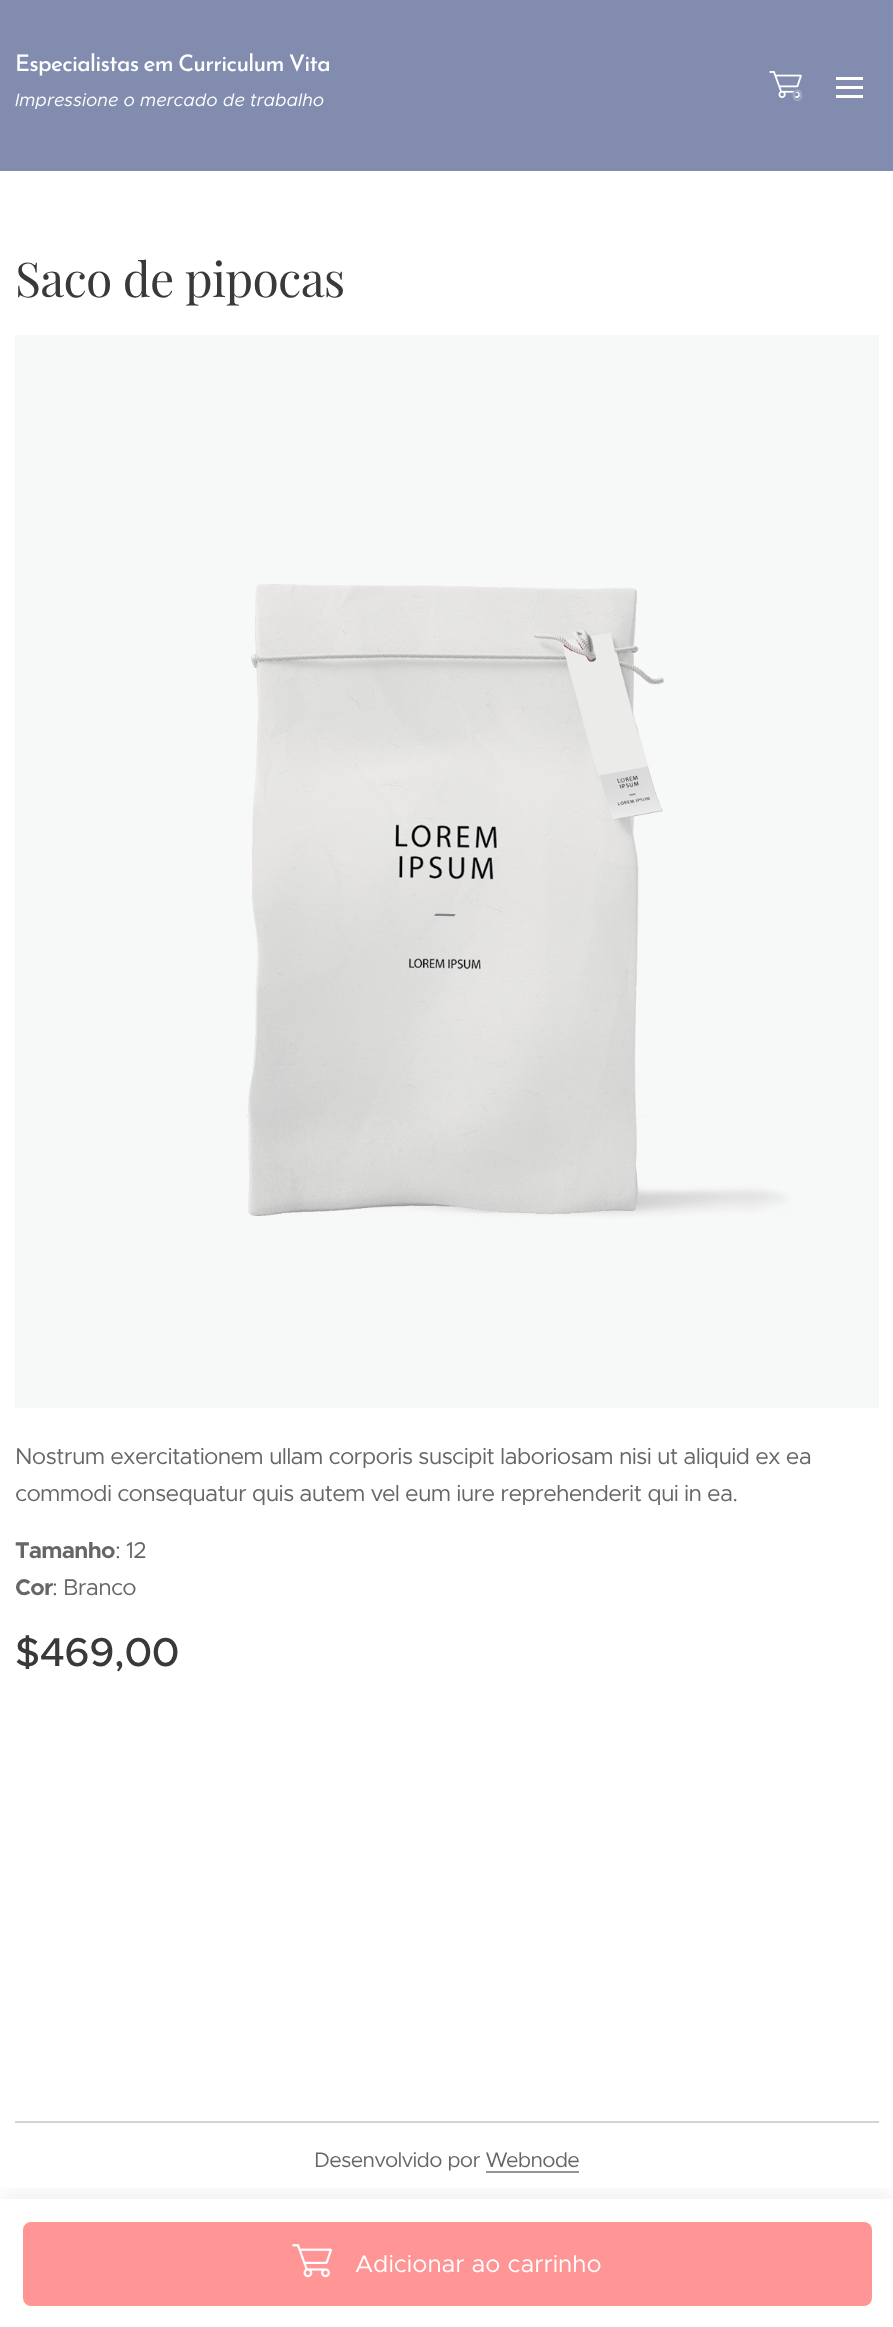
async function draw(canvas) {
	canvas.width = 893;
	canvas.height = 2327;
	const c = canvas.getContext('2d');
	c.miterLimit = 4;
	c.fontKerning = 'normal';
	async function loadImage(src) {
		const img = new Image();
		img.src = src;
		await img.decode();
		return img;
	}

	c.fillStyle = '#fff';
	c.fillRect(0, 0, 893, 2327);
	c.fillStyle = '#818caf';
	c.fillRect(0, 0, 893, 171);
	c.letterSpacing = '-0.7px';
	c.wordSpacing = '-1.5px';
	c.font = '500 22.8px Josefin Sans';
	c.fillStyle = '#fff';
	c.fillText('Especialistas em Curriculum Vita', 15, 71);
	c.letterSpacing = '0px';
	c.wordSpacing = '0px';
	c.font = 'italic 18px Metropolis';
	c.fillText('Impressione o mercado de trabalho', 15, 106);
	c.drawImage(await loadImage('img1.png'), 769, 71, 33, 27);
	c.font = 'bold 16px Montserrat';
	c.fillStyle = '#9da6c1';
	c.fillText('0', 792, 101);
	for (const [x, y, w, h, color] of [
		[836, 86, 27, 3, '#fff'],
		[836, 77, 27, 3, '#fff'],
		[836, 95, 27, 3, '#fff'],
	]) {
		c.fillStyle = color;
		c.fillRect(x, y, w, h);
	}
	c.letterSpacing = '-0.72px';
	c.font = '48px Playfair Display';
	c.fillStyle = '#393939';
	c.fillText('Saco de pipocas', 15, 297);
	c.drawImage(await loadImage('img2.png'), 15, 335, 864, 1073);
	c.font = '22.8px Metropolis';
	c.fillStyle = '#666';
	c.fillText('Nostrum exercitationem ullam corporis suscipit laboriosam nisi ut aliquid ex ea', 15, 1464);
	c.fillText('commodi consequatur quis autem vel eum iure reprehenderit qui in ea.', 15, 1501);
	c.font = 'bold 22.8px Metropolis';
	c.fillText('Tamanho', 15, 1558);
	c.font = '22.8px Metropolis';
	c.fillText(': 12', 115, 1558);
	c.font = 'bold 22.8px Metropolis';
	c.fillText('Cor', 15, 1595);
	c.font = '22.8px Metropolis';
	c.fillText(': Branco', 52, 1595);
	c.font = '500 40.5px Metropolis';
	c.fillStyle = '#393939';
	c.fillText('$469,00', 15, 1666);
	c.fillStyle = '#949494';
	c.fillRect(486, 2171, 93, 2);
	c.save();
	c.beginPath();
	c.rect(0, 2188, 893, 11);
	c.clip();
	c.fillStyle = '#0000000f';
	c.filter = 'blur(11px)';
	c.beginPath();
	c.rect(0, 2193, 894, 129);
	c.fill();
	c.filter = 'none';
	c.restore();
	c.fillStyle = '#ff9595';
	c.beginPath();
	c.roundRect(24, 2223, 847, 82, 7);
	c.fill();
	c.strokeStyle = '#ff9595';
	c.lineWidth = 2;
	c.stroke();
	c.drawImage(await loadImage('img3.png'), 292, 2244, 40, 34);
	c.letterSpacing = '0px';
	c.font = '24px Metropolis';
	c.fillStyle = '#fff';
	c.fillText('Adicionar ao carrinho', 355, 2272);
	c.fillStyle = '#d4d4d4';
	c.fillRect(15, 2121, 864, 2);
	c.letterSpacing = '-0.72px';
	c.font = '21px Metropolis';
	c.fillStyle = '#666';
	c.fillText('Desenvolvido por Webnode', 314, 2167);
}

draw(document.querySelector('canvas'));
